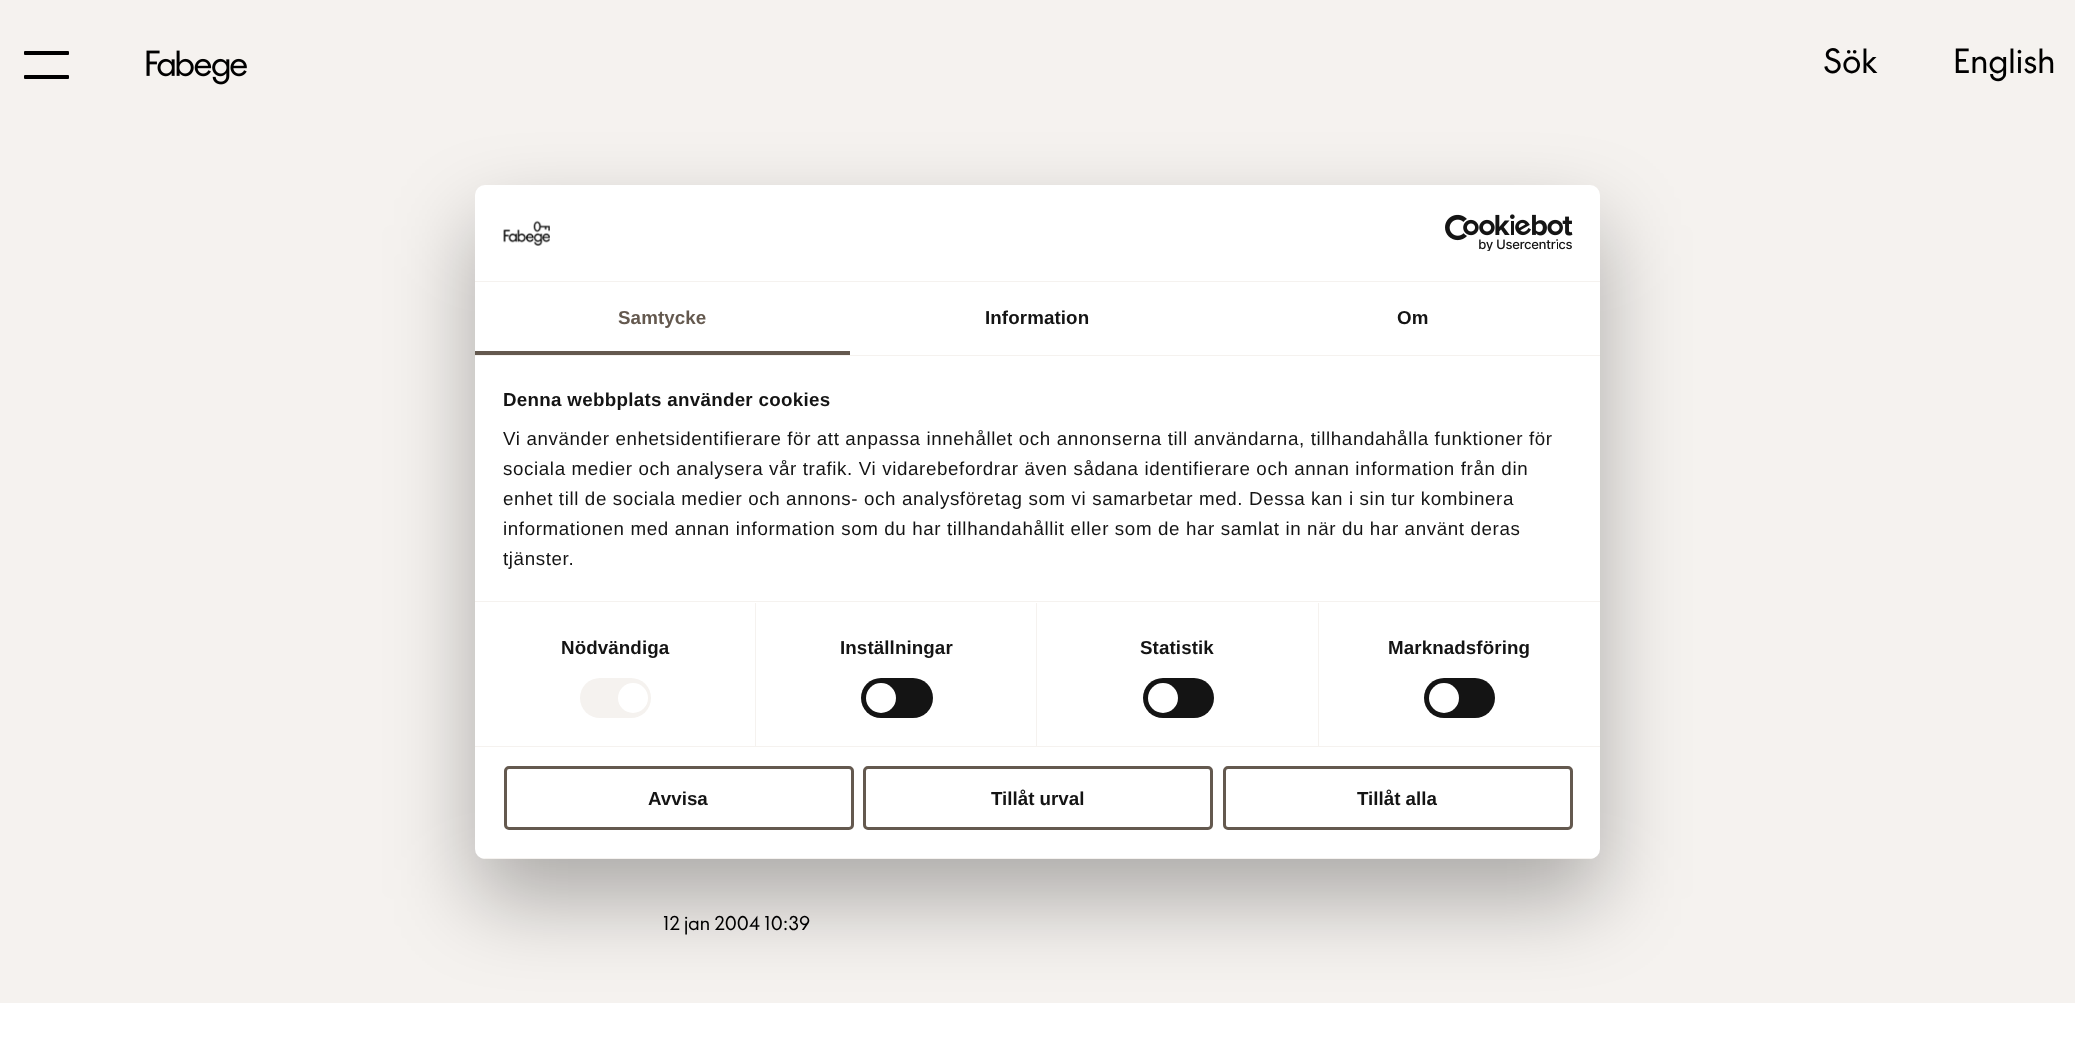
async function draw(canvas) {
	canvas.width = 2075;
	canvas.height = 1045;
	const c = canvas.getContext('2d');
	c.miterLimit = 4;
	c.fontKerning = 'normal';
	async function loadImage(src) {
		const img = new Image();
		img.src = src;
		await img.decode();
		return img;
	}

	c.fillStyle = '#f5f2ef';
	c.fillRect(0, 0, 2075, 1045);
	c.fillStyle = '#000';
	c.beginPath();
	c.roundRect(24, 51, 45, 4, 1);
	c.fill();
	c.beginPath();
	c.roundRect(24, 75, 45, 4, 1);
	c.fill();
	c.drawImage(await loadImage('img1.png'), 146, 50, 101, 35);
	c.font = '35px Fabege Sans';
	c.fillText('Sök', 1823, 73);
	c.fillText('English', 1953, 73);
	c.fillStyle = '#fff';
	c.fillRect(0, 1003, 2075, 42);
	c.fillStyle = '#0000004d';
	c.filter = 'blur(42.5px)';
	c.beginPath();
	c.roundRect(475, 225, 1125, 674, 10);
	c.fill();
	c.filter = 'none';
	c.fillStyle = '#fff';
	c.beginPath();
	c.roundRect(475, 185, 1125, 674, 10);
	c.fill();
	c.fillStyle = '#f5f2ef';
	c.fillRect(475, 281, 1125, 1);
	c.drawImage(await loadImage('img2.png'), 503, 220, 47, 26);
	c.drawImage(await loadImage('img3.png'), 1445, 214, 128, 37);
	c.fillRect(475, 355, 1125, 1);
	c.fillStyle = '#64594f';
	c.fillRect(475, 351, 375, 4);
	c.letterSpacing = '0.1px';
	c.font = 'bold 18.75px Liberation Sans';
	c.fillText('Samtycke', 618, 324);
	c.fillStyle = '#141414';
	c.fillText('Information', 985, 324);
	c.fillText('Om', 1397, 324);
	c.fillStyle = '#f5f2ef';
	c.fillRect(475, 601, 1125, 1);
	c.letterSpacing = '0.3px';
	c.fillStyle = '#141414';
	c.fillText('Denna webbplats använder cookies', 503, 406);
	c.letterSpacing = '0.62px';
	c.font = '18.75px Liberation Sans';
	for (const [text, x, y] of [
		['Vi använder enhetsidentifierare för att anpassa innehållet och annonserna till användarna, tillhandahålla funktioner för', 503, 445],
		['sociala medier och analysera vår trafik. Vi vidarebefordrar även sådana identifierare och annan information från din', 503, 475],
		['enhet till de sociala medier och annons- och analysföretag som vi samarbetar med. Dessa kan i sin tur kombinera', 503, 505],
		['informationen med annan information som du har tillhandahållit eller som de har samlat in när du har använt deras', 503, 535],
		['tjänster.', 503, 565],
	]) {
		c.fillText(text, x, y);
	}
	c.fillStyle = '#f5f2ef';
	c.fillRect(475, 746, 1125, 1);
	c.fillRect(755, 603, 1, 143);
	c.letterSpacing = '0.1px';
	c.font = 'bold 18.75px Liberation Sans';
	c.fillStyle = '#141414';
	c.fillText('Nödvändiga', 561, 654);
	c.fillStyle = '#f5f2ef';
	c.beginPath();
	c.roundRect(580, 678, 71, 40, 20);
	c.fill();
	c.fillStyle = '#fff';
	c.beginPath();
	c.arc(633, 698, 15, 0, 2 * Math.PI);
	c.fill();
	c.fillStyle = '#f5f2ef';
	c.fillRect(1036, 603, 1, 143);
	c.fillStyle = '#141414';
	c.fillText('Inställningar', 840, 654);
	c.beginPath();
	c.roundRect(861, 678, 72, 40, 20);
	c.fill();
	c.fillStyle = '#fff';
	c.beginPath();
	c.arc(881, 698, 15, 0, 2 * Math.PI);
	c.fill();
	c.fillStyle = '#f5f2ef';
	c.fillRect(1318, 603, 1, 143);
	c.fillStyle = '#141414';
	c.fillText('Statistik', 1140, 654);
	c.beginPath();
	c.roundRect(1143, 678, 71, 40, 20);
	c.fill();
	c.fillStyle = '#fff';
	c.beginPath();
	c.arc(1163, 698, 15, 0, 2 * Math.PI);
	c.fill();
	c.fillStyle = '#141414';
	c.fillText('Marknadsföring', 1388, 654);
	c.beginPath();
	c.roundRect(1424, 678, 71, 40, 20);
	c.fill();
	c.fillStyle = '#fff';
	c.beginPath();
	c.arc(1444, 698, 15, 0, 2 * Math.PI);
	c.fill();
	c.save();
	c.beginPath();
	c.roundRect(475, 185, 1125, 674, 10);
	c.clip();
	c.fillStyle = '#f5f2ef';
	c.fillRect(475, 858, 1125, 1);
	c.restore();
	c.beginPath();
	c.roundRect(505.5, 767.5, 347, 61, 3.5);
	c.strokeStyle = '#64594f';
	c.lineWidth = 3;
	c.stroke();
	c.letterSpacing = '0px';
	c.fillStyle = '#141414';
	c.fillText('Avvisa', 648, 805);
	c.beginPath();
	c.roundRect(864.5, 767.5, 347, 61, 3.5);
	c.stroke();
	c.fillText('Tillåt urval', 991, 805);
	c.beginPath();
	c.roundRect(1224.5, 767.5, 347, 61, 3.5);
	c.stroke();
	c.fillText('Tillåt alla', 1357, 805);
	c.font = '20px Fabege Sans';
	c.fillStyle = '#000';
	c.fillText('12 jan 2004 10:39', 663, 930);
}

draw(document.querySelector('canvas'));
